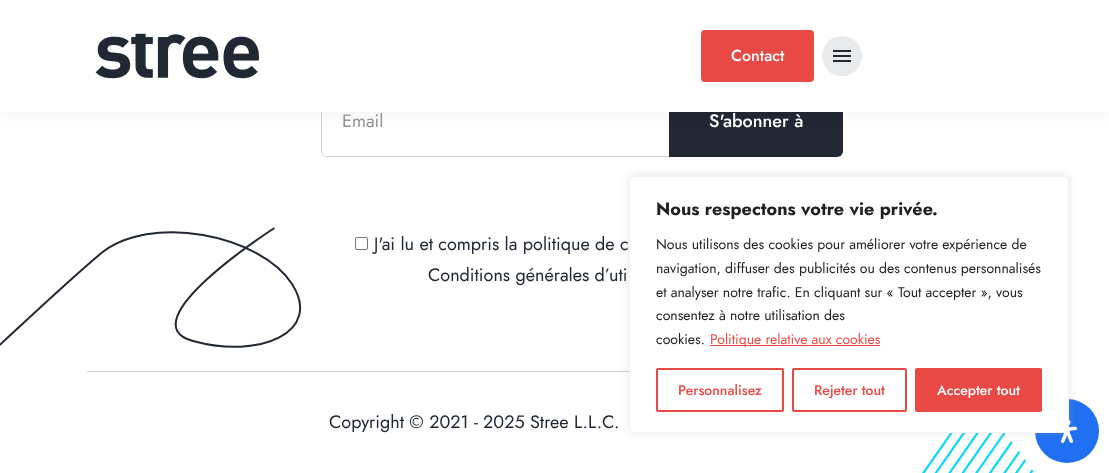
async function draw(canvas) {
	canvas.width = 1109;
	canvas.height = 473;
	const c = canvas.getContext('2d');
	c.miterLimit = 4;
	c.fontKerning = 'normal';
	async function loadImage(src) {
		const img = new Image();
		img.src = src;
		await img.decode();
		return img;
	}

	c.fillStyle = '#fff';
	c.fillRect(0, 0, 1109, 473);
	c.fillStyle = '#d2d2d3';
	c.beginPath();
	c.moveTo(327, 85);
	c.lineTo(669, 85);
	c.lineTo(669, 157);
	c.lineTo(327, 157);
	c.bezierCurveTo(324, 157, 321, 154, 321, 151);
	c.lineTo(321, 91);
	c.bezierCurveTo(321, 88, 324, 85, 327, 85);
	c.closePath();
	c.moveTo(327, 86);
	c.lineTo(669, 86);
	c.lineTo(669, 156);
	c.lineTo(327, 156);
	c.bezierCurveTo(324, 156, 322, 154, 322, 151);
	c.lineTo(322, 91);
	c.bezierCurveTo(322, 88, 324, 86, 327, 86);
	c.closePath();
	c.fill('evenodd');
	c.fillStyle = '#212833';
	c.beginPath();
	c.roundRect(669, 85, 174, 72, [0, 6, 6, 0]);
	c.fill();
	c.fillStyle = '#0000000d';
	c.filter = 'blur(7.5px)';
	c.beginPath();
	c.rect(0, 2, 1109, 112);
	c.fill();
	c.filter = 'none';
	c.fillStyle = '#fff';
	c.fillRect(0, 0, 1109, 112);
	c.drawImage(await loadImage('img1.png'), 95, 33, 164, 46);
	c.fillStyle = '#e84945';
	c.beginPath();
	c.roundRect(702, 31, 111, 50, 3);
	c.fill();
	c.strokeStyle = '#e84945';
	c.lineWidth = 2;
	c.stroke();
	c.font = '500 16px Jost';
	c.fillStyle = '#fff';
	c.fillText('Contact', 731, 61);
	c.fillStyle = '#e9eaeb';
	c.beginPath();
	c.arc(842, 56, 20, 0, 2 * Math.PI);
	c.fill();
	c.drawImage(await loadImage('img2.png'), 833, 50, 18, 12);
	c.beginPath();
	c.moveTo(274.5, 228);
	c.bezierCurveTo(274.5, 228, 126, 323, 193, 341);
	c.bezierCurveTo(260, 359.5, 323, 332, 292, 284);
	c.bezierCurveTo(261, 235.5, 150, 211.5, 99, 255);
	c.bezierCurveTo(48.5, 298, -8.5, 354, -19.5, 362);
	c.strokeStyle = '#212833';
	c.stroke();
	c.font = '18px Jost';
	c.fillStyle = '#909192';
	c.fillText('Email', 342, 127);
	c.font = '500 18px Jost';
	c.fillStyle = '#fff';
	c.fillText('S\'abonner à', 709, 127);
	c.beginPath();
	c.roundRect(355.5, 237.5, 12, 12, 1.5);
	c.strokeStyle = '#767676';
	c.lineWidth = 1;
	c.stroke();
	c.font = '18px Jost';
	c.fillStyle = '#212833';
	c.fillText('J\'ai lu et compris la politique de c', 374, 250);
	c.fillText('Conditions générales d’uti', 428, 281);
	c.fillStyle = '#d2d2d3';
	c.fillRect(87, 371, 542, 1);
	c.fillStyle = '#212833';
	c.fillText('Copyright © 2021 - 2025 Stree L.L.C.', 329, 428);
	c.drawImage(await loadImage('img3.png'), 922, 433, 112, 40);
	c.fillStyle = '#216ff3';
	c.beginPath();
	c.arc(1067, 431, 32, 0, 2 * Math.PI);
	c.fill();
	c.drawImage(await loadImage('img4.png'), 1061, 419, 16, 24);
	c.fillStyle = '#acabab4d';
	c.filter = 'blur(5px)';
	c.beginPath();
	c.roundRect(629, 175, 440, 257, 6);
	c.fill();
	c.filter = 'none';
	c.fillStyle = '#fff';
	c.beginPath();
	c.roundRect(629.5, 176.5, 439, 256, 5.5);
	c.fill();
	c.strokeStyle = '#f4f4f4';
	c.stroke();
	c.font = 'bold 18px Jost';
	c.fillStyle = '#212121';
	c.fillText('Nous respectons votre vie privée.', 656, 215);
	c.font = '14px Jost';
	for (const [text, x, y] of [
		['Nous utilisons des cookies pour améliorer votre expérience de', 656, 249],
		['navigation, diffuser des publicités ou des contenus personnalisés', 656, 273],
		['et analyser notre trafic. En cliquant sur « Tout accepter », vous', 656, 297],
		['consentez à notre utilisation des', 656, 320],
		['cookies.', 656, 344],
	]) {
		c.fillText(text, x, y);
	}
	c.fillStyle = '#e84945';
	c.fillRect(710, 345, 170, 1);
	c.fillText('Politique relative aux cookies', 710, 344);
	c.beginPath();
	c.roundRect(657, 369, 126, 42, 1);
	c.strokeStyle = '#e84945';
	c.lineWidth = 2;
	c.stroke();
	c.font = '500 14px Jost';
	c.fillText('Personnalisez', 678, 395);
	c.beginPath();
	c.roundRect(793, 369, 113, 42, 1);
	c.stroke();
	c.fillText('Rejeter tout', 814, 395);
	c.beginPath();
	c.roundRect(916, 369, 125, 42, 1);
	c.fill();
	c.stroke();
	c.fillStyle = '#fff';
	c.fillText('Accepter tout', 937, 395);
}

draw(document.querySelector('canvas'));
